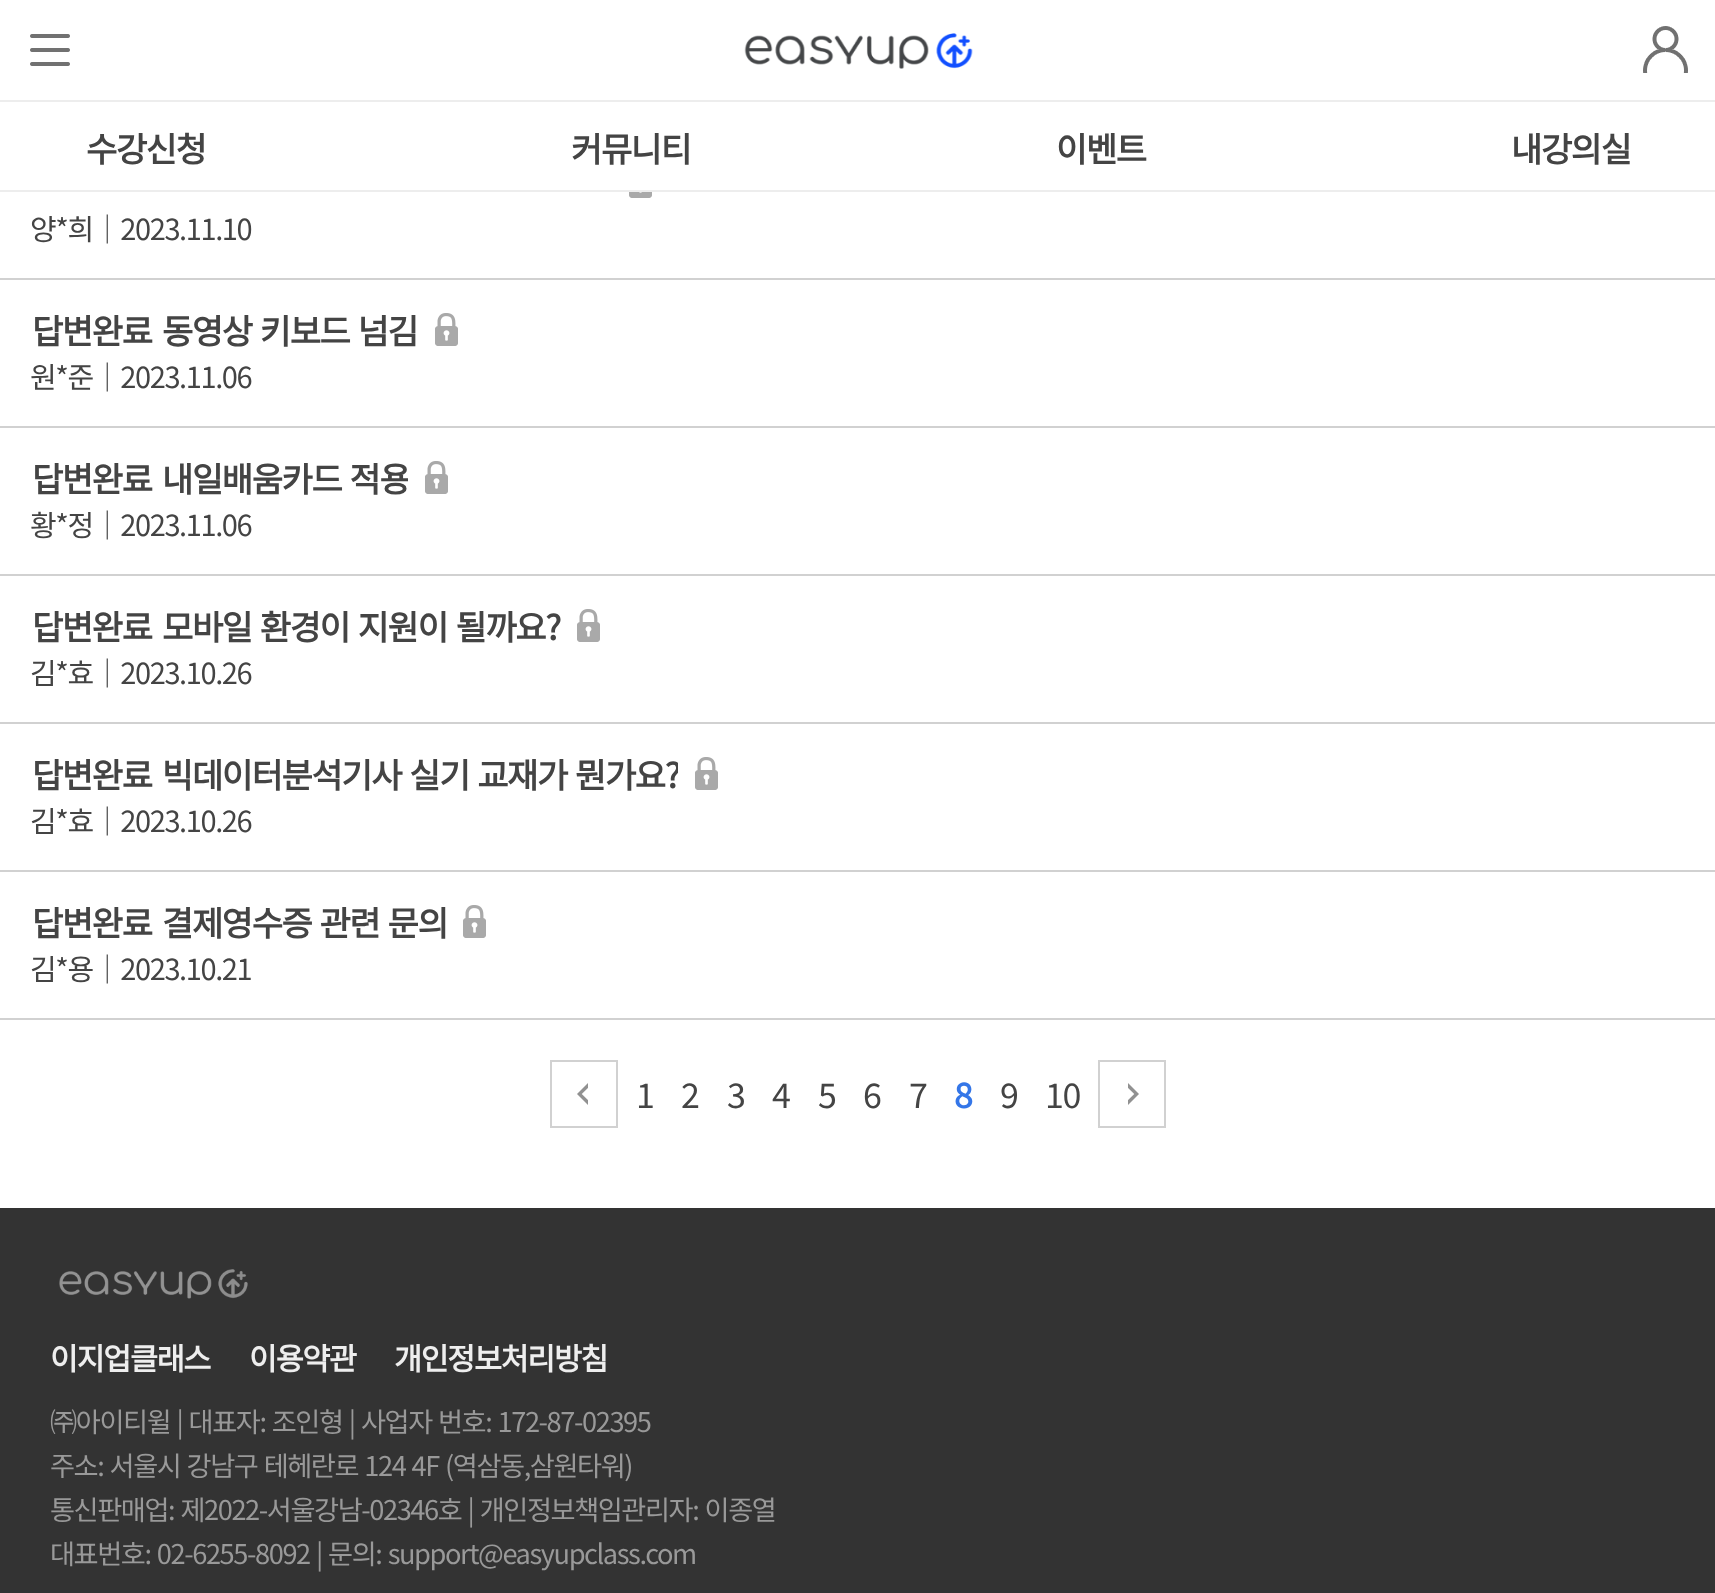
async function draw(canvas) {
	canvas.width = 1715;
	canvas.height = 1593;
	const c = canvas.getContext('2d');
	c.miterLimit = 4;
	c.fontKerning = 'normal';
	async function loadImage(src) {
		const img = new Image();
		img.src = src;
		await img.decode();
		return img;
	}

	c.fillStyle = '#fff';
	c.fillRect(0, 0, 1715, 1593);
	c.fillStyle = '#ededed';
	c.fillRect(0, 190, 1715, 2);
	c.drawImage(await loadImage('img1.png'), 30, 34, 40, 32);
	c.drawImage(await loadImage('img2.png'), 744, 33, 229, 36);
	c.drawImage(await loadImage('img3.png'), 1643, 26, 45, 47);
	c.fillRect(0, 100, 1715, 2);
	c.letterSpacing = '-1.4px';
	c.font = 'bold 34px Noto Sans KR';
	c.fillStyle = '#444';
	for (const [text, x, y] of [
		['수강신청', 86, 162],
		['커뮤니티', 571, 162],
		['이벤트', 1056, 162],
		['내강의실', 1511, 162],
	]) {
		c.fillText(text, x, y);
	}
	c.fillStyle = '#d1d1d1';
	c.fillRect(0, 1018, 1715, 2);
	c.drawImage(await loadImage('img4.png'), 629, 192, 23, 6);
	c.font = '100 29px Noto Sans KR';
	c.fillStyle = '#444';
	c.fillText('양*희│2023.11.10', 30, 240);
	c.fillStyle = '#d1d1d1';
	c.fillRect(0, 278, 1715, 2);
	c.font = 'bold 34px Noto Sans KR';
	c.fillStyle = '#444';
	c.fillText('답변완료', 32, 344);
	c.wordSpacing = '2px';
	c.fillText('동영상 키보드 넘김', 162, 344);
	c.drawImage(await loadImage('img5.png'), 435, 313, 23, 33);
	c.wordSpacing = '0px';
	c.font = '100 29px Noto Sans KR';
	c.fillText('원*준│2023.11.06', 30, 388);
	c.fillStyle = '#d1d1d1';
	c.fillRect(0, 426, 1715, 2);
	c.font = 'bold 34px Noto Sans KR';
	c.fillStyle = '#444';
	c.fillText('답변완료', 32, 492);
	c.save();
	c.beginPath();
	c.rect(30, 458, 378, 40);
	c.clip();
	c.wordSpacing = '2px';
	c.fillText('내일배움카드 적용', 162, 492);
	c.restore();
	c.drawImage(await loadImage('img5.png'), 425, 461, 23, 33);
	c.font = '100 29px Noto Sans KR';
	c.fillText('황*정│2023.11.06', 30, 536);
	c.fillStyle = '#d1d1d1';
	c.fillRect(0, 574, 1715, 2);
	c.font = 'bold 34px Noto Sans KR';
	c.fillStyle = '#444';
	c.fillText('답변완료', 32, 640);
	c.wordSpacing = '2px';
	c.fillText('모바일 환경이 지원이 될까요?', 162, 640);
	c.drawImage(await loadImage('img5.png'), 577, 609, 23, 33);
	c.wordSpacing = '0px';
	c.font = '100 29px Noto Sans KR';
	c.fillText('김*효│2023.10.26', 30, 684);
	c.fillStyle = '#d1d1d1';
	c.fillRect(0, 722, 1715, 2);
	c.font = 'bold 34px Noto Sans KR';
	c.fillStyle = '#444';
	c.fillText('답변완료', 32, 788);
	c.save();
	c.beginPath();
	c.rect(30, 754, 648, 40);
	c.clip();
	c.wordSpacing = '2px';
	c.fillText('빅데이터분석기사 실기 교재가 뭔가요?', 162, 788);
	c.restore();
	c.drawImage(await loadImage('img5.png'), 695, 757, 23, 33);
	c.font = '100 29px Noto Sans KR';
	c.fillText('김*효│2023.10.26', 30, 832);
	c.fillStyle = '#d1d1d1';
	c.fillRect(0, 870, 1715, 2);
	c.font = 'bold 34px Noto Sans KR';
	c.fillStyle = '#444';
	c.fillText('답변완료', 32, 936);
	c.wordSpacing = '2px';
	c.fillText('결제영수증 관련 문의', 162, 936);
	c.drawImage(await loadImage('img5.png'), 463, 905, 23, 33);
	c.wordSpacing = '0px';
	c.font = '100 29px Noto Sans KR';
	c.fillText('김*용│2023.10.21', 30, 980);
	c.drawImage(await loadImage('img6.png'), 577, 1083, 11, 22);
	c.strokeStyle = '#d1d1d1';
	c.lineWidth = 2;
	c.strokeRect(551, 1061, 66, 66);
	c.font = '100 34px Noto Sans KR';
	for (const [text, x, y] of [
		['1', 636, 1108],
		['2', 681, 1108],
		['3', 727, 1108],
		['4', 772, 1108],
		['5', 818, 1108],
		['6', 863, 1108],
		['7', 909, 1108],
	]) {
		c.fillText(text, x, y);
	}
	c.font = 'bold 34px Noto Sans KR';
	c.fillStyle = '#3476e8';
	c.fillText('8', 954, 1108);
	c.font = '100 34px Noto Sans KR';
	c.fillStyle = '#444';
	c.fillText('9', 1000, 1108);
	c.fillText('10', 1045, 1108);
	c.drawImage(await loadImage('img7.png'), 1128, 1083, 11, 22);
	c.strokeRect(1099, 1061, 66, 66);
	c.fillStyle = '#333';
	c.fillRect(0, 1208, 1715, 385);
	c.drawImage(await loadImage('img8.png'), 59, 1269, 189, 30);
	c.font = 'bold 30.5px Noto Sans KR';
	c.fillStyle = '#eee';
	for (const [text, x, y] of [
		['이지업클래스', 50, 1370],
		['이용약관', 249, 1370],
		['개인정보처리방침', 394, 1370],
	]) {
		c.fillText(text, x, y);
	}
	c.wordSpacing = '1.5px';
	c.font = '100 27.2px Noto Sans KR';
	c.fillStyle = '#999';
	for (const [text, x, y] of [
		['㈜아이티윌 | 대표자: 조인형 | 사업자 번호: 172-87-02395', 50, 1432],
		['주소: 서울시 강남구 테헤란로 124 4F (역삼동,삼원타워)', 50, 1476],
		['통신판매업: 제2022-서울강남-02346호 | 개인정보책임관리자: 이종열', 50, 1520],
		['대표번호: 02-6255-8092 | 문의: support@easyupclass.com', 50, 1564],
	]) {
		c.fillText(text, x, y);
	}
}

draw(document.querySelector('canvas'));
